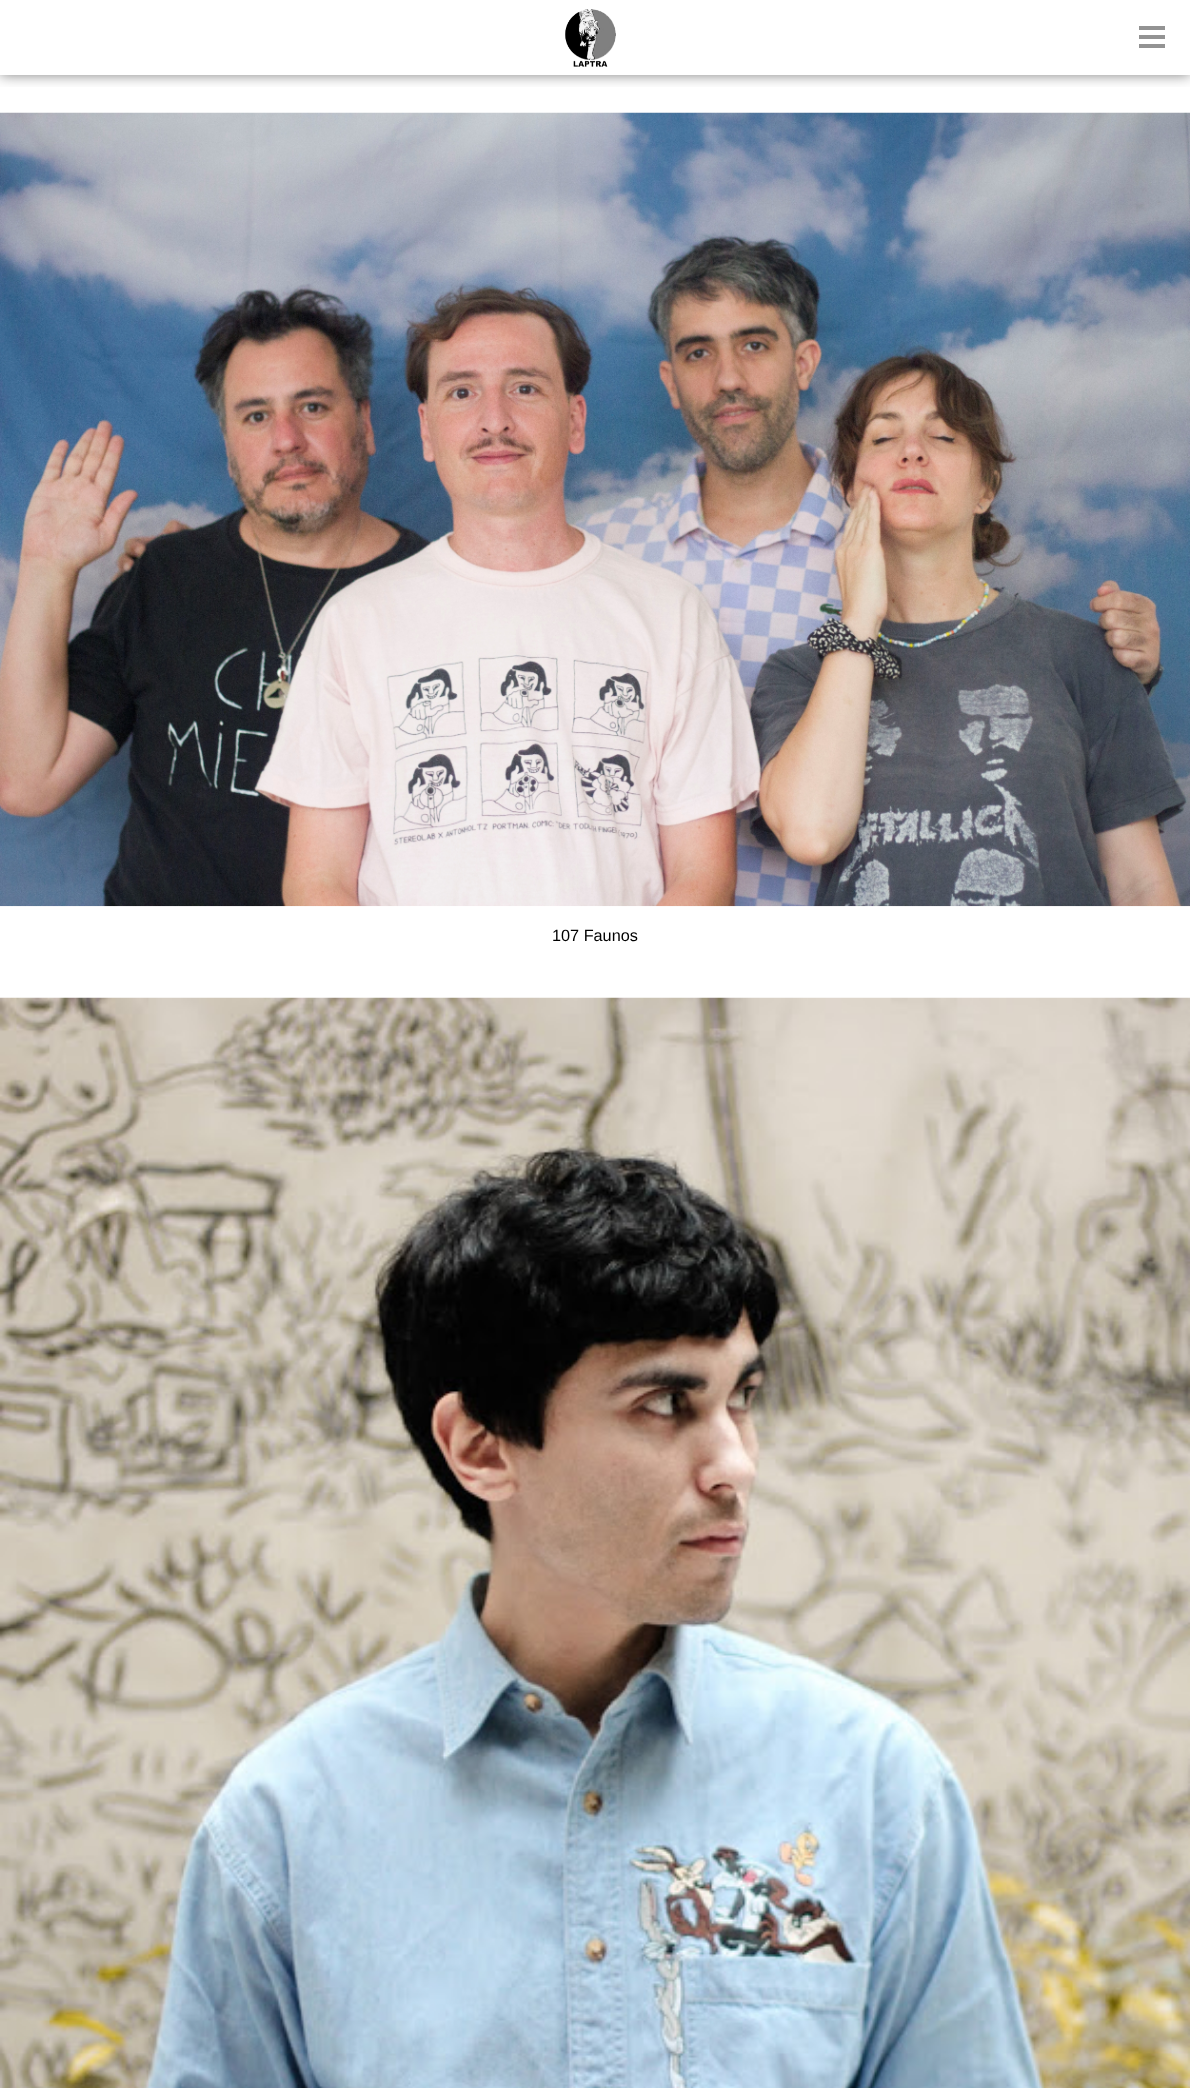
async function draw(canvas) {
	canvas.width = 1190;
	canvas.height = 2088;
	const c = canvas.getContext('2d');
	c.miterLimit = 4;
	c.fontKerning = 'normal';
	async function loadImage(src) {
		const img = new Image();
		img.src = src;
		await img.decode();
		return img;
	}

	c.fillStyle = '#fff';
	c.fillRect(0, 0, 1190, 2088);
	c.save();
	c.beginPath();
	c.rect(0, 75, 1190, 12);
	c.clip();
	c.fillStyle = '#00000080';
	c.filter = 'blur(7px)';
	c.beginPath();
	c.rect(0, 0, 1190, 75);
	c.fill();
	c.filter = 'none';
	c.restore();
	c.drawImage(await loadImage('img1.png'), 565, 9, 51, 58);
	for (const [x, y, w, h, color] of [
		[1139, 26, 26, 4, '#939393'],
		[1139, 35, 26, 4, '#939393'],
		[1139, 44, 26, 4, '#939393'],
	]) {
		c.fillStyle = color;
		c.fillRect(x, y, w, h);
	}
	c.drawImage(await loadImage('img2.png'), 0, 112, 1190, 795);
	c.font = '16.25px Liberation Sans';
	c.fillStyle = '#000';
	c.fillText('107 Faunos', 552, 941);
	c.drawImage(await loadImage('img3.png'), 0, 997, 1190, 1091);
}

draw(document.querySelector('canvas'));
